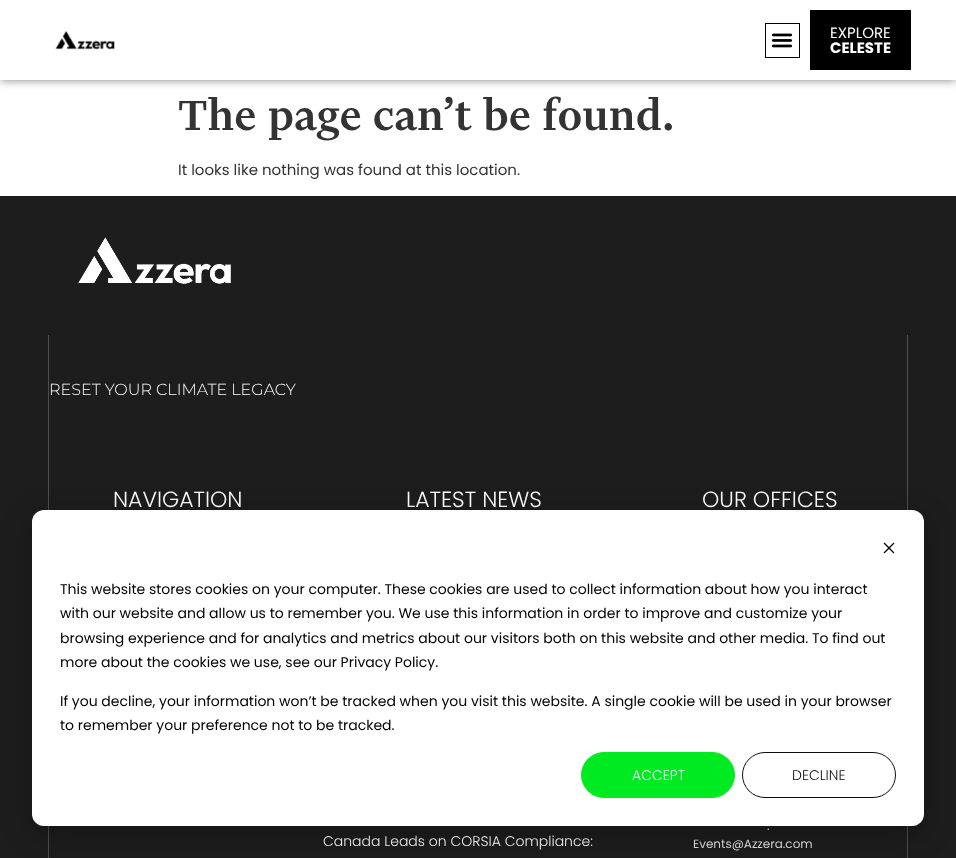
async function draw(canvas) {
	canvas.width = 956;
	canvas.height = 858;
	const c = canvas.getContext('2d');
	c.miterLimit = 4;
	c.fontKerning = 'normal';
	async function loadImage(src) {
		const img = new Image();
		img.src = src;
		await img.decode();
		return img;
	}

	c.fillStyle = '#fff';
	c.fillRect(0, 0, 956, 858);
	c.save();
	c.beginPath();
	c.rect(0, 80, 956, 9);
	c.clip();
	c.fillStyle = '#00000080';
	c.filter = 'blur(5px)';
	c.beginPath();
	c.rect(0, 0, 956, 80);
	c.fill();
	c.filter = 'none';
	c.restore();
	c.drawImage(await loadImage('img1.png'), 55, 31, 60, 19);
	c.strokeStyle = '#000';
	c.strokeRect(765.5, 23.5, 34, 34);
	c.drawImage(await loadImage('img2.png'), 771, 33, 22, 15);
	c.fillStyle = '#000';
	c.fillRect(810, 10, 101, 60);
	c.font = '15px Poppins';
	c.fillStyle = '#fff';
	c.fillText('EXPLORE', 830, 38);
	c.font = 'bold 15px Poppins';
	c.fillText('CELESTE', 830, 53);
	c.font = '500 50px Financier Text';
	c.fillStyle = '#333';
	c.fillText('The page can’t be found.', 178, 130);
	c.font = '15px Poppins';
	c.fillText('It looks like nothing was found at this location.', 178, 175);
	c.fillStyle = '#1d1d1d';
	c.fillRect(0, 196, 956, 662);
	c.drawImage(await loadImage('img3.png'), 78, 237, 153, 47);
	c.fillStyle = '#4f4d4c';
	c.fillRect(907, 335, 1, 523);
	c.fillRect(48, 335, 1, 523);
	c.font = '300 16px Montserrat';
	c.fillStyle = '#fff';
	c.fillText('RESET YOUR CLIMATE LEGACY', 49, 395);
	c.font = '300 22px Poppins';
	c.fillText('NAVIGATION', 113, 507);
	c.fillText('LATEST NEWS', 406, 507);
	c.font = '300 14px Poppins';
	c.fillText('Canada Leads on CORSIA Compliance:', 323, 846);
	c.font = '300 22px Poppins';
	c.fillText('OUR OFFICES', 702, 507);
	c.font = '12px Poppins';
	c.fillStyle = '#dbdbdb';
	c.fillText('.', 767, 830);
	c.fillText('Events@Azzera.com', 693, 848);
	c.fillStyle = '#00000047';
	c.filter = 'blur(14px)';
	c.beginPath();
	c.roundRect(32, 518, 892, 316, 12);
	c.fill();
	c.filter = 'none';
	c.fillStyle = '#fff';
	c.beginPath();
	c.roundRect(32, 510, 892, 316, 12);
	c.fill();
	c.drawImage(await loadImage('img4.png'), 883, 542, 12, 12);
	c.font = '14px Poppins';
	c.fillStyle = '#000';
	for (const [text, x, y] of [
		['This website stores cookies on your computer. These cookies are used to collect information about how you interact', 60, 594],
		['with our website and allow us to remember you. We use this information in order to improve and customize your', 60, 618],
		['browsing experience and for analytics and metrics about our visitors both on this website and other media. To find out', 60, 643],
		['more about the cookies we use, see our Privacy Policy.', 60, 667],
		['If you decline, your information won’t be tracked when you visit this website. A single cookie will be used in your browser', 60, 706],
		['to remember your preference not to be tracked.', 60, 730],
	]) {
		c.fillText(text, x, y);
	}
	c.fillStyle = '#00ea21';
	c.beginPath();
	c.roundRect(581.5, 752.5, 153, 45, 22.5);
	c.fill();
	c.strokeStyle = '#00ea21';
	c.stroke();
	c.font = '300 14px Poppins';
	c.fillStyle = '#fff';
	c.fillText('ACCEPT', 632, 780);
	c.beginPath();
	c.roundRect(742.5, 752.5, 153, 45, 22.5);
	c.strokeStyle = '#0e0e0e';
	c.stroke();
	c.fillStyle = '#0e0e0e';
	c.fillText('DECLINE', 792, 780);
}

draw(document.querySelector('canvas'));
